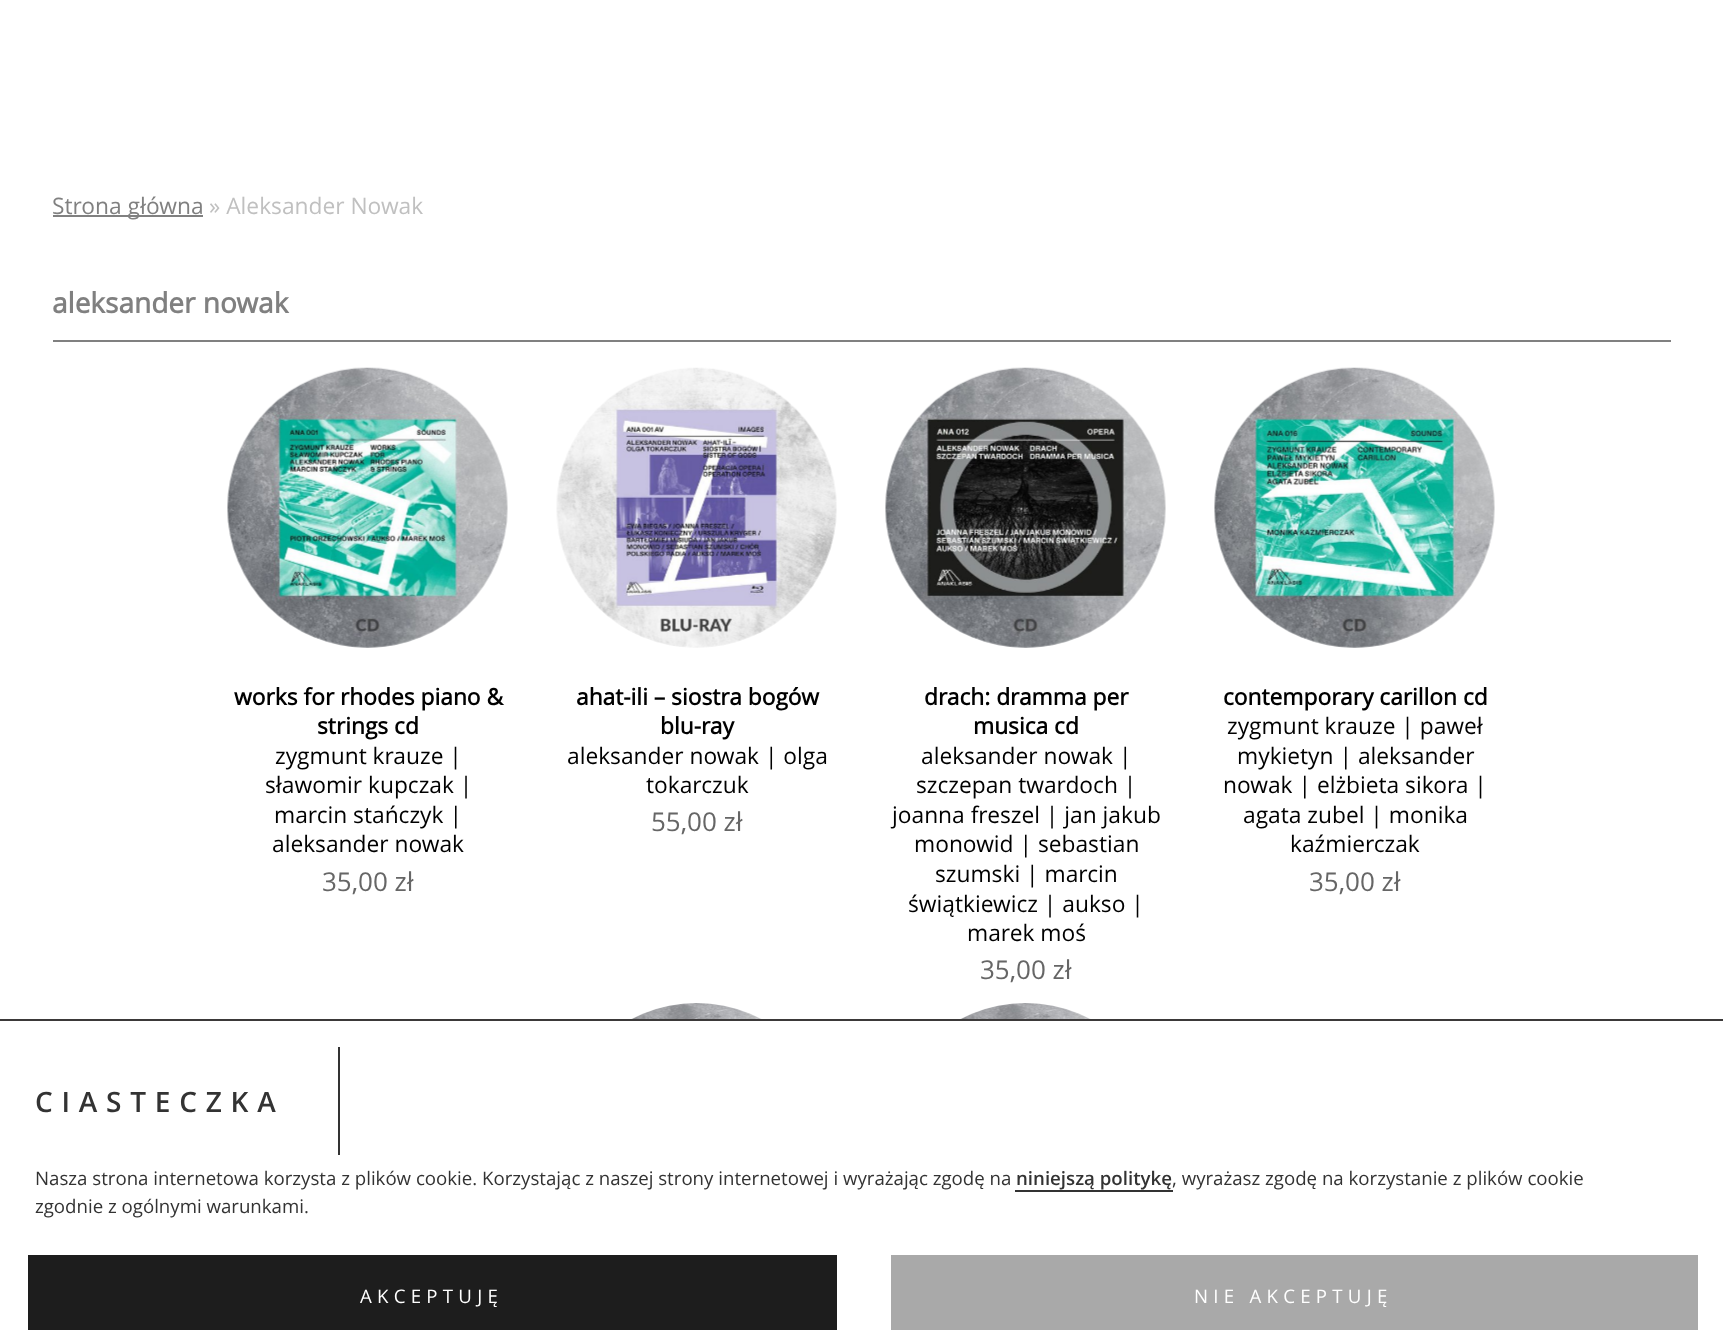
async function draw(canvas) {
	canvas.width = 1723;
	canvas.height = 1330;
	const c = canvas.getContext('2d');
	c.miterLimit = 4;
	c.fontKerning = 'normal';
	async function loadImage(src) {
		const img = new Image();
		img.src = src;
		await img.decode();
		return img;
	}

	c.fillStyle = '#fff';
	c.fillRect(0, 0, 1723, 1330);
	c.fillStyle = '#808080';
	c.fillRect(53, 215, 150, 2);
	c.font = '22.75px Open Sans';
	c.fillText('Strona główna', 52, 214);
	c.fillStyle = '#c0c0c0';
	c.fillText('» Aleksander Nowak', 209, 214);
	c.fillStyle = '#808080';
	c.fillRect(53, 340, 1618, 2);
	c.font = 'bold 28px Open Sans';
	c.fillText('aleksander nowak', 52, 313);
	c.drawImage(await loadImage('img1.png'), 227, 367, 281, 281);
	c.font = 'bold 22.75px Open Sans';
	c.fillStyle = '#000';
	c.fillText('works for rhodes piano &', 234, 705);
	c.fillText('strings cd', 317, 734);
	c.font = '22.75px Open Sans';
	for (const [text, x, y] of [
		['zygmunt krauze |', 275, 764],
		['sławomir kupczak |', 265, 793],
		['marcin stańczyk |', 274, 823],
		['aleksander nowak', 272, 852],
	]) {
		c.fillText(text, x, y);
	}
	c.font = '26px Open Sans';
	c.fillStyle = '#666';
	c.fillText('35,00 zł', 322, 891);
	c.drawImage(await loadImage('img2.png'), 556, 367, 281, 281);
	c.font = 'bold 22.75px Open Sans';
	c.fillStyle = '#000';
	c.fillText('ahat-ili – siostra bogów', 576, 705);
	c.fillText('blu-ray', 660, 734);
	c.font = '22.75px Open Sans';
	c.fillText('aleksander nowak | olga', 567, 764);
	c.fillText('tokarczuk', 646, 793);
	c.font = '26px Open Sans';
	c.fillStyle = '#666';
	c.fillText('55,00 zł', 651, 831);
	c.drawImage(await loadImage('img3.png'), 885, 367, 281, 281);
	c.font = 'bold 22.75px Open Sans';
	c.fillStyle = '#000';
	c.fillText('drach: dramma per', 924, 705);
	c.fillText('musica cd', 973, 734);
	c.font = '22.75px Open Sans';
	for (const [text, x, y] of [
		['aleksander nowak |', 921, 764],
		['szczepan twardoch |', 916, 793],
		['joanna freszel | jan jakub', 892, 823],
		['monowid | sebastian', 914, 852],
		['szumski | marcin', 935, 882],
		['świątkiewicz | aukso |', 908, 912],
		['marek moś', 967, 941],
	]) {
		c.fillText(text, x, y);
	}
	c.font = '26px Open Sans';
	c.fillStyle = '#666';
	c.fillText('35,00 zł', 980, 979);
	c.drawImage(await loadImage('img4.png'), 1214, 367, 281, 281);
	c.font = 'bold 22.75px Open Sans';
	c.fillStyle = '#000';
	c.fillText('contemporary carillon cd', 1223, 705);
	c.font = '22.75px Open Sans';
	for (const [text, x, y] of [
		['zygmunt krauze | paweł', 1227, 734],
		['mykietyn | aleksander', 1237, 764],
		['nowak | elżbieta sikora |', 1223, 793],
		['agata zubel | monika', 1243, 823],
		['kaźmierczak', 1290, 852],
	]) {
		c.fillText(text, x, y);
	}
	c.font = '26px Open Sans';
	c.fillStyle = '#666';
	c.fillText('35,00 zł', 1309, 891);
	c.drawImage(await loadImage('img5.png'), 631, 1003, 131, 16);
	c.drawImage(await loadImage('img5.png'), 960, 1003, 131, 16);
	c.fillStyle = '#3b3939';
	c.fillRect(0, 1019, 1723, 2);
	c.fillStyle = '#333';
	c.fillRect(338, 1047, 2, 108);
	c.letterSpacing = '8.75px';
	c.font = '600 28px Open Sans';
	c.fillText('CIASTECZKA', 35, 1112);
	c.letterSpacing = '0px';
	c.font = '18.67px "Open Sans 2"';
	c.fillText('Nasza strona internetowa korzysta z plików cookie. Korzystając z naszej strony internetowej i wyrażając zgodę na', 35, 1185);
	c.font = '600 18.67px Open Sans';
	c.fillText('niniejszą politykę', 1016, 1185);
	c.fillRect(1015, 1190, 158, 2);
	c.font = '18.67px "Open Sans 2"';
	c.fillText(', wyrażasz zgodę na korzystanie z plików cookie', 1172, 1185);
	c.fillText('zgodnie z ogólnymi warunkami.', 35, 1213);
	c.fillStyle = '#1d1d1d';
	c.fillRect(28, 1255, 809, 75);
	c.letterSpacing = '5.25px';
	c.fillStyle = '#fff';
	c.fillText('AKCEPTUJĘ', 360, 1303);
	c.fillStyle = '#a9a9a9';
	c.fillRect(891, 1255, 807, 75);
	c.fillStyle = '#fff';
	c.fillText('NIE AKCEPTUJĘ', 1194, 1303);
}

draw(document.querySelector('canvas'));
